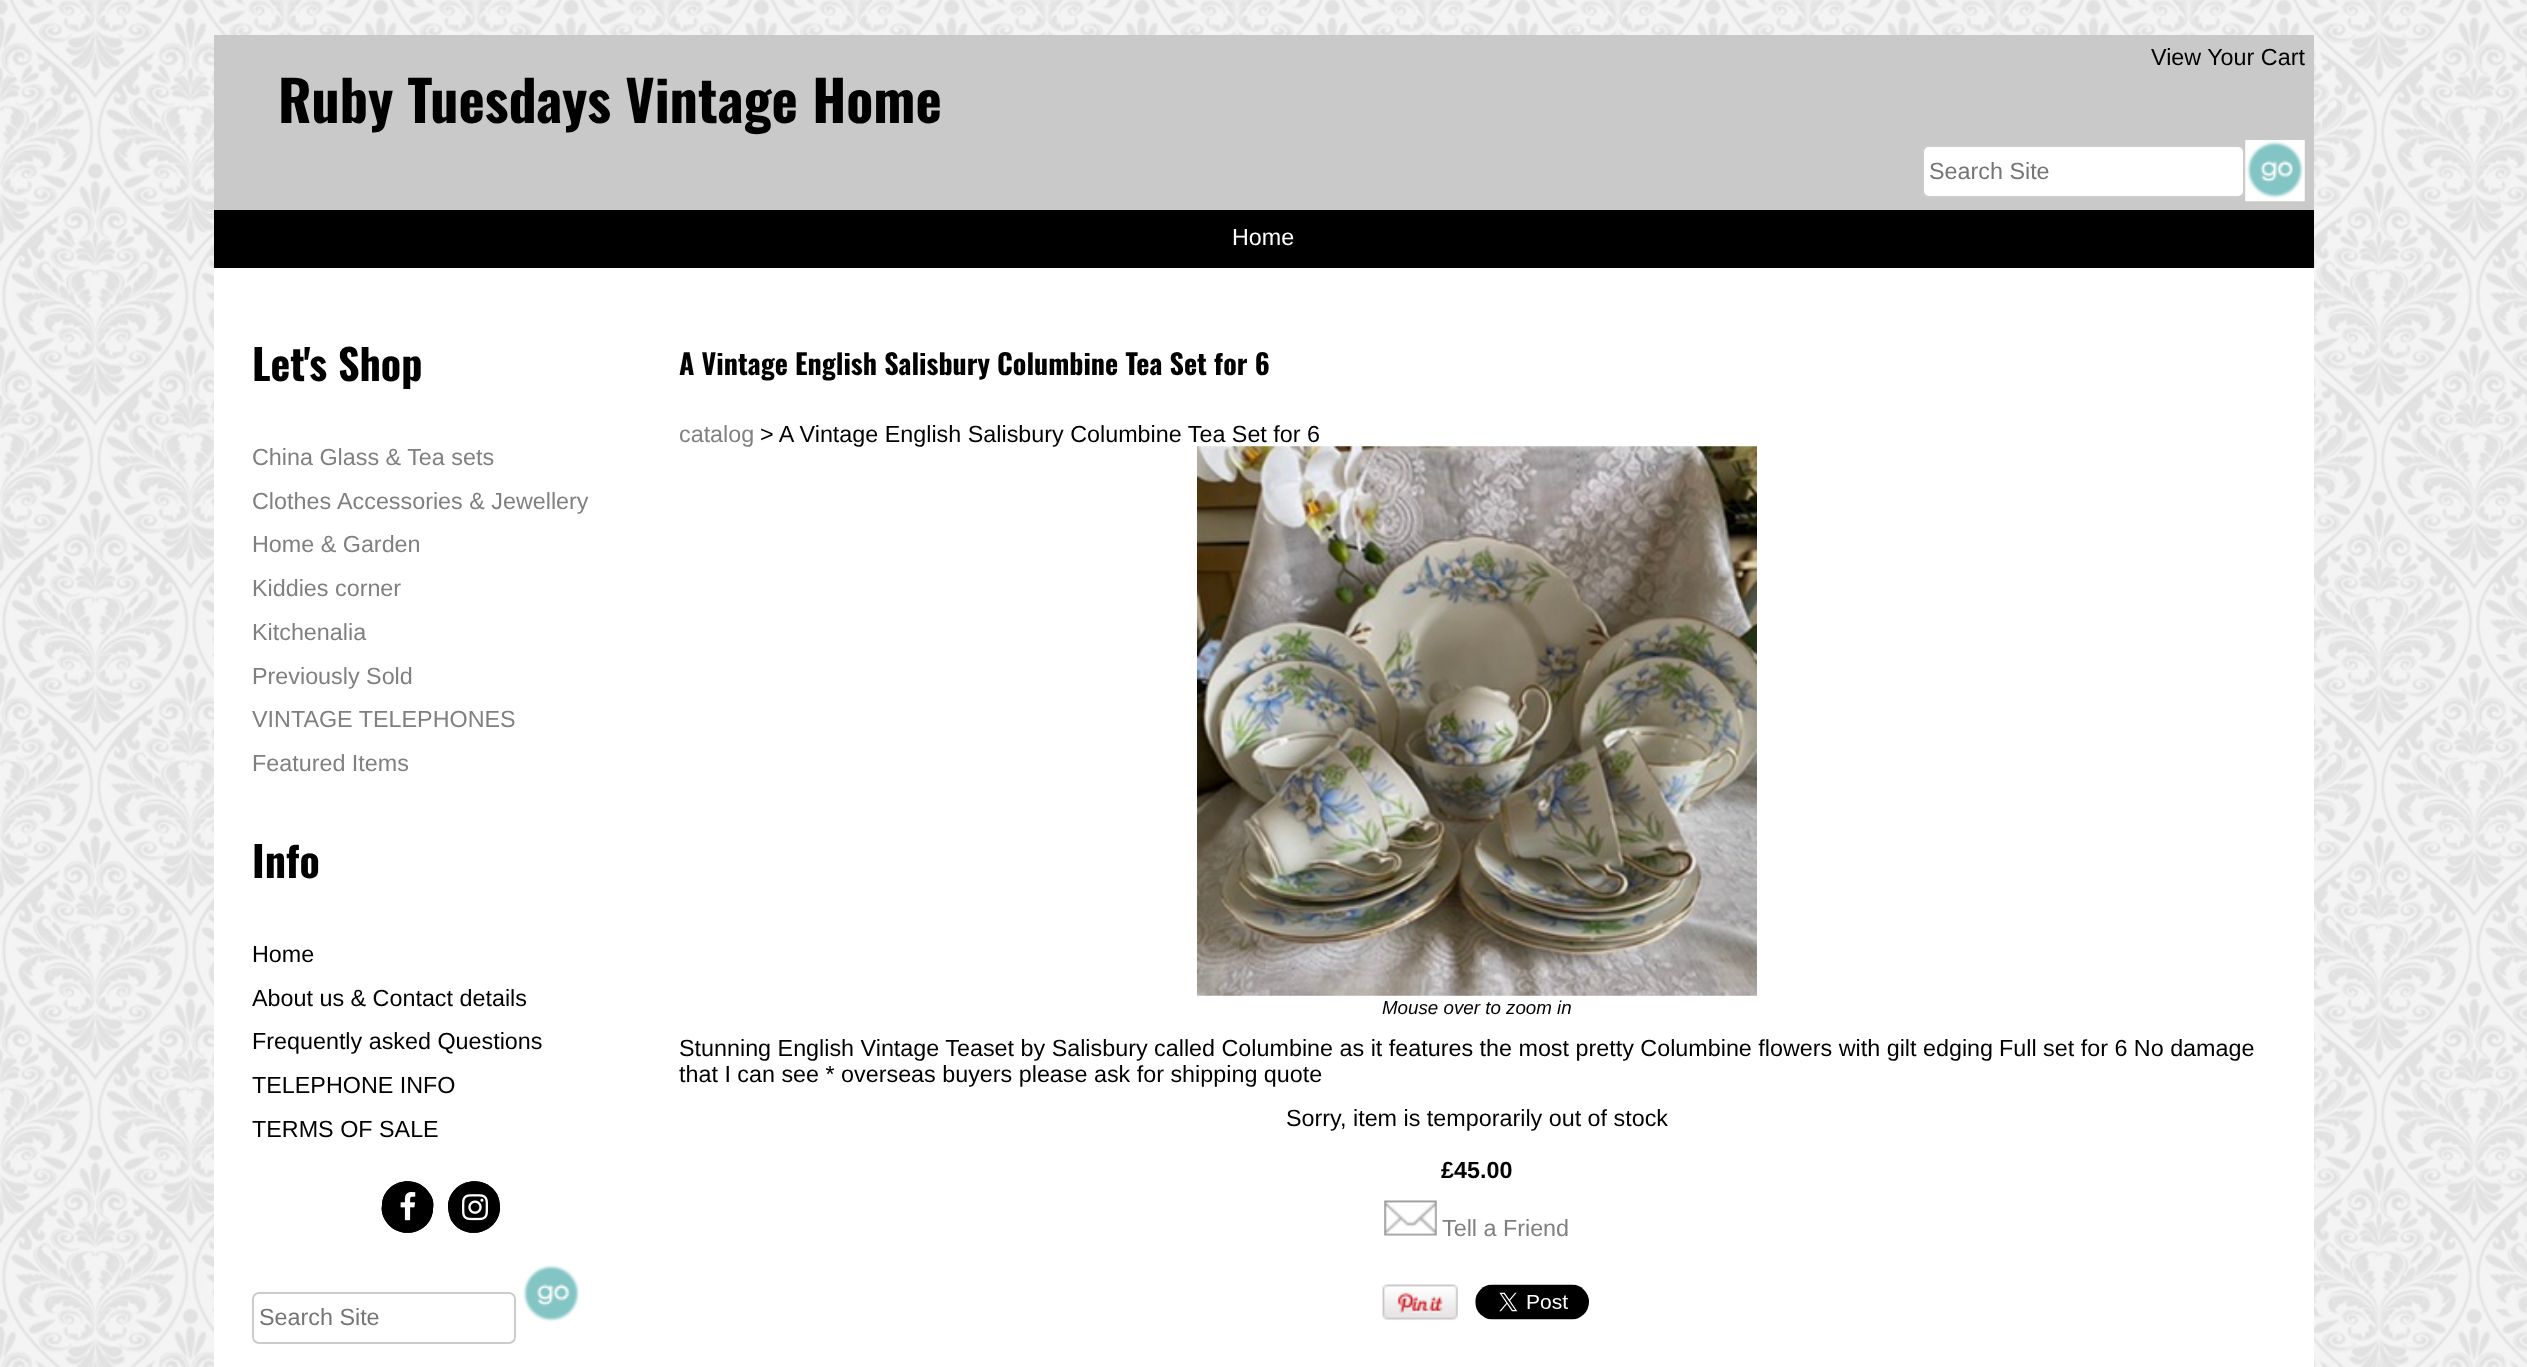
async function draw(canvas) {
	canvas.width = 2527;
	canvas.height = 1367;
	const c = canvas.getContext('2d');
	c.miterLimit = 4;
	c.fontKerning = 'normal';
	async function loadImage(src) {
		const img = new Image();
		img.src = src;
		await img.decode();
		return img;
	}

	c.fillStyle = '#fff';
	c.fillRect(0, 0, 2527, 1367);
	c.drawImage(await loadImage('img1.png'), 0, 0, 2527, 1367);
	c.fillStyle = '#c9c9c9';
	c.fillRect(214, 35, 2100, 175);
	c.font = '23.33px Liberation Sans';
	c.fillStyle = '#000';
	c.fillText('View Your Cart', 2151, 65);
	c.font = 'bold 56px Oswald';
	c.fillText('Ruby Tuesdays Vintage Home', 278, 123);
	c.fillStyle = '#fff';
	c.beginPath();
	c.roundRect(1923, 146, 321, 51, 6);
	c.fill();
	c.strokeStyle = '#ccc';
	c.lineWidth = 2;
	c.stroke();
	c.font = '23.33px Liberation Sans';
	c.fillStyle = '#757575';
	c.fillText('Search Site', 1929, 179);
	c.drawImage(await loadImage('img2.png'), 2245, 140, 60, 62);
	c.fillStyle = '#fff';
	c.fillRect(214, 268, 2100, 1099);
	c.fillStyle = '#000';
	c.fillRect(214, 210, 2100, 58);
	c.fillStyle = '#fff';
	c.fillText('Home', 1232, 245);
	c.font = 'bold 42px Oswald';
	c.fillStyle = '#000';
	c.fillText('Let\'s Shop', 252, 381);
	c.font = '23.33px Liberation Sans';
	c.fillStyle = '#808080';
	for (const [text, x, y] of [
		['China Glass & Tea sets', 252, 465],
		['Clothes', 252, 509],
		['Accessories & Jewellery', 337, 509],
		['Home & Garden', 252, 552],
		['Kiddies corner', 252, 596],
		['Kitchenalia', 252, 640],
		['Previously Sold', 252, 684],
		['VINTAGE TELEPHONES', 252, 727],
		['Featured Items', 252, 771],
	]) {
		c.fillText(text, x, y);
	}
	c.font = 'bold 42px Oswald';
	c.fillStyle = '#000';
	c.fillText('Info', 252, 878);
	c.font = '23.33px Liberation Sans';
	for (const [text, x, y] of [
		['Home', 252, 962],
		['About us & Contact details', 252, 1006],
		['Frequently asked Questions', 252, 1049],
		['TELEPHONE INFO', 252, 1093],
		['TERMS OF SALE', 252, 1137],
	]) {
		c.fillText(text, x, y);
	}
	c.beginPath();
	c.moveTo(430, 1194);
	c.bezierCurveTo(433, 1198, 434, 1203, 433, 1209);
	c.bezierCurveTo(432, 1234, 398, 1242, 385, 1220);
	c.bezierCurveTo(382, 1215, 381, 1210, 382, 1205);
	c.bezierCurveTo(383, 1180, 417, 1172, 430, 1194);
	c.closePath();
	c.fill();
	c.beginPath();
	c.moveTo(416, 1187);
	c.bezierCurveTo(390, 1176, 373, 1216, 399, 1227);
	c.bezierCurveTo(425, 1238, 442, 1198, 416, 1187);
	c.closePath();
	c.moveTo(430, 1194);
	c.bezierCurveTo(433, 1198, 434, 1203, 433, 1209);
	c.bezierCurveTo(432, 1234, 398, 1242, 385, 1220);
	c.bezierCurveTo(382, 1215, 381, 1210, 382, 1205);
	c.bezierCurveTo(383, 1180, 417, 1172, 430, 1194);
	c.closePath();
	c.fill();
	c.drawImage(await loadImage('img3.png'), 400, 1192, 16, 29);
	c.beginPath();
	c.moveTo(497, 1194);
	c.bezierCurveTo(499, 1198, 500, 1203, 500, 1209);
	c.bezierCurveTo(498, 1234, 464, 1242, 451, 1220);
	c.bezierCurveTo(449, 1215, 448, 1210, 448, 1205);
	c.bezierCurveTo(450, 1180, 484, 1172, 497, 1194);
	c.closePath();
	c.fill();
	c.beginPath();
	c.moveTo(482, 1187);
	c.bezierCurveTo(456, 1176, 439, 1216, 466, 1227);
	c.bezierCurveTo(492, 1238, 509, 1198, 482, 1187);
	c.closePath();
	c.moveTo(497, 1194);
	c.bezierCurveTo(499, 1198, 500, 1203, 500, 1209);
	c.bezierCurveTo(498, 1234, 464, 1242, 451, 1220);
	c.bezierCurveTo(449, 1215, 448, 1210, 448, 1205);
	c.bezierCurveTo(450, 1180, 484, 1172, 497, 1194);
	c.closePath();
	c.fill();
	c.drawImage(await loadImage('img4.png'), 462, 1194, 26, 27);
	c.beginPath();
	c.roundRect(253, 1293, 262, 50, 6);
	c.stroke();
	c.fillStyle = '#757575';
	c.fillText('Search Site', 259, 1325);
	c.drawImage(await loadImage('img5.png'), 523, 1265, 57, 57);
	c.font = 'bold 28px Oswald';
	c.fillStyle = '#000';
	c.fillText('A Vintage English Salisbury Columbine Tea Set for 6', 679, 375);
	c.font = '23.33px Liberation Sans';
	c.fillStyle = '#808080';
	c.fillText('catalog', 679, 442);
	c.fillStyle = '#000';
	c.fillText('> A Vintage English Salisbury Columbine Tea Set for 6', 760, 442);
	c.drawImage(await loadImage('img6.png'), 1197, 446, 560, 550);
	c.font = 'italic 18.75px Liberation Sans';
	c.fillText('Mouse over to zoom in', 1382, 1014);
	c.font = '23.33px Liberation Sans';
	for (const [text, x, y] of [
		['Stunning English Vintage Teaset by Salisbury called Columbine as it features the most pretty Columbine flowers with gilt edging', 679, 1056],
		['Full set for 6 No damage', 1999, 1056],
		['that I can see * overseas buyers please ask for shipping quote', 679, 1082],
		['Sorry, item is temporarily out of stock', 1286, 1126],
	]) {
		c.fillText(text, x, y);
	}
	c.font = 'bold 23.33px Liberation Sans';
	c.fillText('£45.00', 1441, 1178);
	c.drawImage(await loadImage('img7.png'), 1384, 1200, 53, 36);
	c.font = '23.33px Liberation Sans';
	c.fillStyle = '#808080';
	c.fillText('Tell a Friend', 1442, 1236);
	c.drawImage(await loadImage('img8.png'), 1382, 1284, 76, 36);
	c.drawImage(await loadImage('img9.png'), 1475, 1284, 114, 36);
}

draw(document.querySelector('canvas'));
